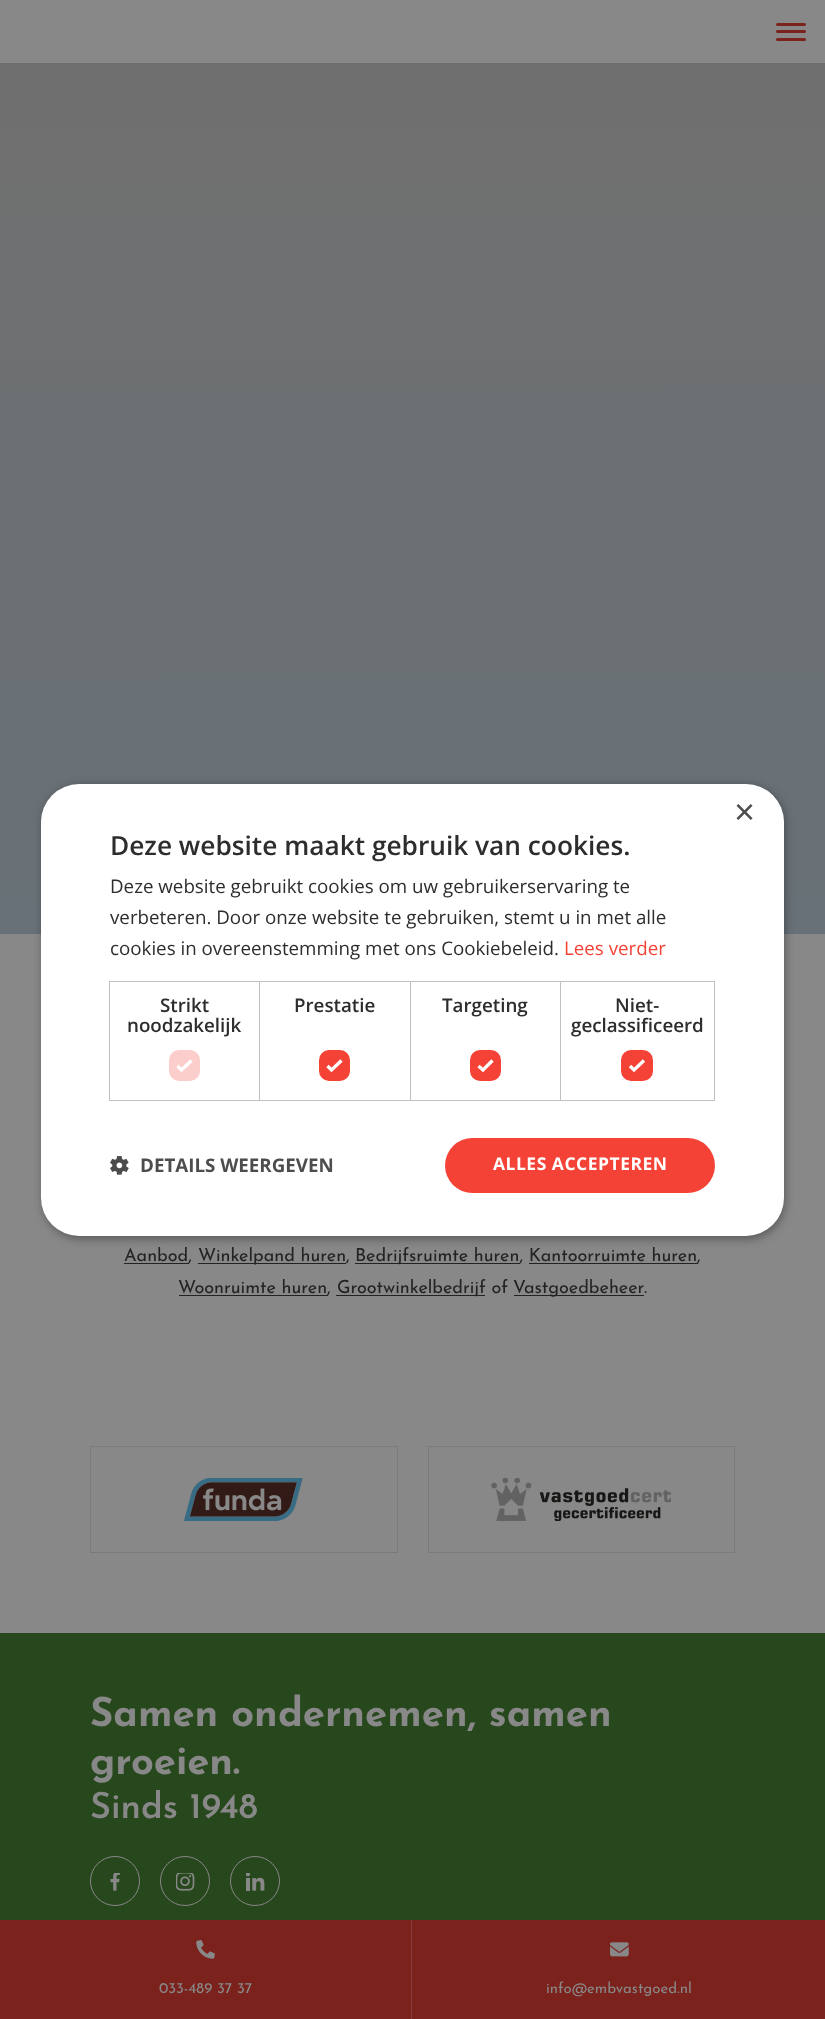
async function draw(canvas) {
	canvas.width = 825;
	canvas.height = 2019;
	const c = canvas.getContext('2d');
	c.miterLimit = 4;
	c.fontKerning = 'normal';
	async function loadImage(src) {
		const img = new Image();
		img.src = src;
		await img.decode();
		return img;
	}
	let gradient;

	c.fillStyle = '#888';
	c.fillRect(0, 0, 825, 2019);
	c.fillStyle = '#7c221d';
	c.beginPath();
	c.roundRect(776, 23, 30, 3, 1.5);
	c.fill();
	c.beginPath();
	c.roundRect(776, 30, 30, 3, 1.5);
	c.fill();
	c.beginPath();
	c.roundRect(776, 38, 30, 3, 1.5);
	c.fill();
	c.fillStyle = '#6f6f6f';
	c.fillRect(0, 63, 825, 63);
	gradient = c.createLinearGradient(412, 126, 413, 934);
	gradient.addColorStop(0, '#707070');
	gradient.addColorStop(1, '#687177');
	c.fillStyle = gradient;
	c.fillRect(0, 126, 825, 808);
	c.fillStyle = '#00000059';
	c.filter = 'blur(5px)';
	c.beginPath();
	c.roundRect(43, 786, 742, 453, 38);
	c.fill();
	c.filter = 'none';
	c.fillStyle = '#fff';
	c.beginPath();
	c.roundRect(41, 784, 743, 452, 38);
	c.fill();
	c.font = '36px Liberation Sans';
	c.fillStyle = '#4d4d4d';
	c.fillText('×', 734, 824);
	c.font = '600 26.25px Open Sans';
	c.fillStyle = '#2d2d2d';
	c.fillText('Deze website maakt gebruik van cookies.', 110, 855);
	c.font = '18.75px Open Sans';
	for (const [text, x, y] of [
		['Deze website gebruikt cookies om uw gebruikerservaring te', 110, 893],
		['verbeteren. Door onze website te gebruiken, stemt u in met alle', 110, 924],
		['cookies in overeenstemming met ons Cookiebeleid.', 110, 955],
	]) {
		c.fillText(text, x, y);
	}
	c.fillStyle = '#f44336';
	c.fillText('Lees verder', 564, 955);
	c.strokeStyle = '#c0c0c0';
	c.strokeRect(109.5, 981.5, 150, 119);
	c.font = '600 18.75px Open Sans';
	c.fillStyle = '#2d2d2d';
	c.fillText('Strikt', 160, 1012);
	c.fillText('noodzakelijk', 127, 1032);
	c.fillStyle = '#fccecb';
	c.beginPath();
	c.roundRect(169, 1050, 31, 31, 10);
	c.fill();
	c.beginPath();
	c.moveTo(177.5, 1066);
	c.lineTo(181.5, 1070);
	c.lineTo(191.5, 1060.5);
	c.strokeStyle = '#fff';
	c.lineWidth = 3.3;
	c.stroke();
	c.strokeStyle = '#c0c0c0';
	c.lineWidth = 1;
	c.strokeRect(259.5, 981.5, 151, 119);
	c.fillStyle = '#2d2d2d';
	c.fillText('Prestatie', 294, 1012);
	c.fillStyle = '#f44336';
	c.beginPath();
	c.roundRect(320.5, 1051.5, 28, 28, 8.5);
	c.fill();
	c.strokeStyle = '#f44336';
	c.lineWidth = 3;
	c.stroke();
	c.beginPath();
	c.moveTo(327.5, 1066);
	c.lineTo(331.5, 1070);
	c.lineTo(341.5, 1060.5);
	c.strokeStyle = '#fff';
	c.lineWidth = 3.3;
	c.stroke();
	c.strokeStyle = '#c0c0c0';
	c.lineWidth = 1;
	c.strokeRect(410.5, 981.5, 150, 119);
	c.fillStyle = '#2d2d2d';
	c.fillText('Targeting', 442, 1012);
	c.fillStyle = '#f44336';
	c.beginPath();
	c.roundRect(471.5, 1051.5, 28, 28, 8.5);
	c.fill();
	c.strokeStyle = '#f44336';
	c.lineWidth = 3;
	c.stroke();
	c.beginPath();
	c.moveTo(478.5, 1066);
	c.lineTo(483, 1070);
	c.lineTo(492.5, 1060.5);
	c.strokeStyle = '#fff';
	c.lineWidth = 3.3;
	c.stroke();
	c.strokeStyle = '#c0c0c0';
	c.lineWidth = 1;
	c.strokeRect(560.5, 981.5, 154, 119);
	c.fillStyle = '#2d2d2d';
	c.fillText('Niet-', 615, 1012);
	c.fillText('geclassificeerd', 571, 1032);
	c.fillStyle = '#f44336';
	c.beginPath();
	c.roundRect(622.5, 1051.5, 29, 28, 8.5);
	c.fill();
	c.strokeStyle = '#f44336';
	c.lineWidth = 3;
	c.stroke();
	c.beginPath();
	c.moveTo(630, 1066);
	c.lineTo(634, 1070);
	c.lineTo(644, 1060.5);
	c.strokeStyle = '#fff';
	c.lineWidth = 3.3;
	c.stroke();
	c.drawImage(await loadImage('img1.png'), 110, 1156, 19, 19);
	c.font = 'bold 18.75px Open Sans';
	c.fillStyle = '#4d4d4d';
	c.fillText('DETAILS WEERGEVEN', 140, 1172);
	c.fillStyle = '#f44336';
	c.beginPath();
	c.roundRect(445, 1138, 270, 55, 27.5);
	c.fill();
	c.letterSpacing = '0.5px';
	c.font = 'bold 17.5px Open Sans';
	c.fillStyle = '#fff';
	c.fillText('ALLES ACCEPTEREN', 493, 1170);
	c.fillStyle = '#232323';
	c.fillRect(124, 1263, 65, 1);
	c.letterSpacing = '0px';
	c.font = '18px Josefin Sans';
	c.fillText('Aanbod,', 124, 1261);
	c.fillRect(198, 1263, 148, 1);
	c.fillText('Winkelpand huren,', 198, 1261);
	c.fillRect(355, 1263, 165, 1);
	c.fillText('Bedrijfsruimte huren, Kantoorruimte huren', 355, 1261);
	c.fillRect(529, 1263, 169, 1);
	c.fillText(',', 697, 1261);
	c.fillRect(179, 1295, 149, 1);
	c.fillText('Woonruimte huren,', 178, 1293);
	c.fillRect(336, 1295, 149, 1);
	c.fillText('Grootwinkelbedrijf of', 337, 1293);
	c.fillRect(514, 1295, 130, 1);
	c.fillText('Vastgoedbeheer', 513, 1293);
	c.fillText('.', 644, 1293);
	c.strokeStyle = '#787a7c';
	c.lineWidth = 1;
	c.strokeRect(90.5, 1446.5, 307, 106);
	c.drawImage(await loadImage('img2.png'), 184, 1478, 119, 43);
	c.strokeRect(428.5, 1446.5, 306, 106);
	c.drawImage(await loadImage('img3.png'), 491, 1478, 180, 43);
	c.fillStyle = '#27471c';
	c.fillRect(0, 1633, 825, 287);
	c.font = 'bold 40px Josefin Sans';
	c.fillStyle = '#888';
	c.fillText('Samen ondernemen, samen', 90, 1726);
	c.fillText('groeien.', 90, 1774);
	c.font = '600 36px Josefin Sans';
	c.fillText('Sinds 1948', 90, 1818);
	c.beginPath();
	c.arc(115, 1881, 24.5, 0, 2 * Math.PI);
	c.strokeStyle = '#888';
	c.stroke();
	c.drawImage(await loadImage('img4.png'), 110, 1873, 10, 18);
	c.beginPath();
	c.arc(185, 1881, 24.5, 0, 2 * Math.PI);
	c.stroke();
	c.drawImage(await loadImage('img5.png'), 176, 1873, 19, 18);
	c.beginPath();
	c.arc(255, 1881, 24.5, 0, 2 * Math.PI);
	c.stroke();
	c.drawImage(await loadImage('img6.png'), 246, 1873, 19, 18);
	c.fillStyle = '#7c221d';
	c.fillRect(0, 1920, 825, 99);
	c.fillStyle = '#80413d';
	c.fillRect(411, 1920, 1, 99);
	c.drawImage(await loadImage('img7.png'), 196, 1940, 19, 19);
	c.font = '15px Josefin Sans';
	c.fillStyle = '#888';
	c.fillText('033-489 37 37', 159, 1993);
	c.drawImage(await loadImage('img8.png'), 610, 1942, 19, 15);
	c.fillText('info@embvastgoed.nl', 546, 1993);
}

draw(document.querySelector('canvas'));
